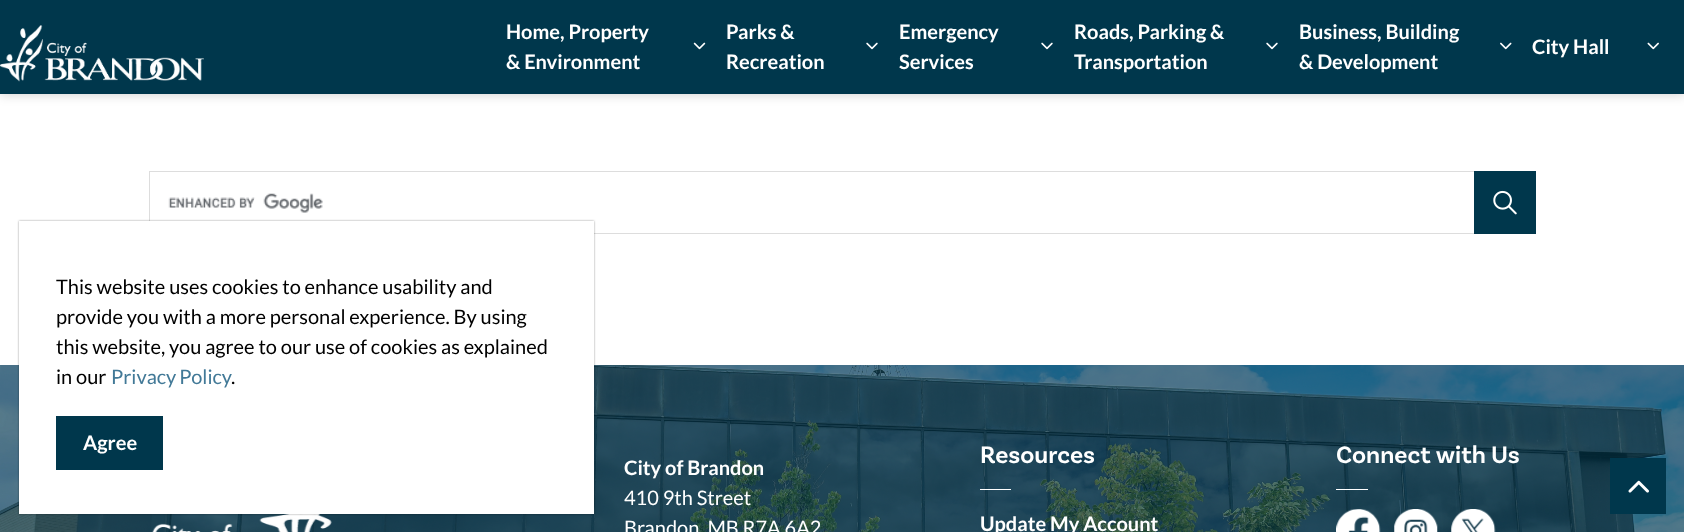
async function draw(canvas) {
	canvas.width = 1684;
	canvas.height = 532;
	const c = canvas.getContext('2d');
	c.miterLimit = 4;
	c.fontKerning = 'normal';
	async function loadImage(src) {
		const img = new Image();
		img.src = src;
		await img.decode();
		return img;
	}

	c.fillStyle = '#fff';
	c.fillRect(0, 0, 1684, 532);
	c.drawImage(await loadImage('img6.png'), 168, 193, 155, 20);
	c.strokeStyle = '#ddd';
	c.strokeRect(149.5, 171.5, 1373, 62);
	c.drawImage(await loadImage('img8.png'), 0, 365, 1684, 167);
	c.drawImage(await loadImage('img9.png'), 152, 514, 180, 18);
	c.fillStyle = '#00000066';
	c.filter = 'blur(1px)';
	c.beginPath();
	c.rect(19, 221, 575, 293);
	c.fill();
	c.filter = 'none';
	c.fillStyle = '#fff';
	c.fillRect(19, 221, 575, 293);
	c.font = '20px Lato';
	c.fillStyle = '#000';
	for (const [text, x, y] of [
		['This website uses cookies to enhance usability and', 56, 294],
		['provide you with a more personal experience. By using', 56, 324],
		['this website, you agree to our use of cookies as explained', 56, 354],
		['in our', 56, 384],
	]) {
		c.fillText(text, x, y);
	}
	c.wordSpacing = '-1px';
	c.fillStyle = '#427997';
	c.fillText('Privacy Policy', 111, 384);
	c.wordSpacing = '0px';
	c.fillStyle = '#000';
	c.fillText('.', 231, 384);
	c.fillStyle = '#00374c';
	c.fillRect(56, 416, 107, 54);
	c.font = 'bold 20px Lato';
	c.fillStyle = '#fff';
	c.fillText('Agree', 83, 450);
	c.fillStyle = '#00000033';
	c.filter = 'blur(6px)';
	c.beginPath();
	c.rect(0, -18, 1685, 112);
	c.fill();
	c.filter = 'none';
	c.fillStyle = '#00374c';
	c.fillRect(0, 0, 1684, 94);
	c.drawImage(await loadImage('img1.png'), 0, 25, 204, 57);
	c.fillStyle = '#fff';
	c.fillText('Home, Property', 506, 39);
	c.fillText('& Environment', 506, 69);
	c.drawImage(await loadImage('img2.png'), 693, 42, 13, 8);
	c.fillText('Parks &', 726, 39);
	c.fillText('Recreation', 726, 69);
	c.drawImage(await loadImage('img3.png'), 866, 42, 12, 8);
	c.fillText('Emergency', 899, 39);
	c.fillText('Services', 899, 69);
	c.drawImage(await loadImage('img3.png'), 1041, 42, 12, 8);
	c.fillText('Roads, Parking &', 1074, 39);
	c.fillText('Transportation', 1074, 69);
	c.drawImage(await loadImage('img3.png'), 1266, 42, 12, 8);
	c.fillText('Business, Building', 1299, 39);
	c.fillText('& Development', 1299, 69);
	c.drawImage(await loadImage('img4.png'), 1500, 42, 12, 8);
	c.fillText('City Hall', 1532, 54);
	c.drawImage(await loadImage('img5.png'), 1647, 42, 12, 8);
	c.fillStyle = '#00374c';
	c.fillRect(1474, 171, 62, 63);
	c.drawImage(await loadImage('img7.png'), 1493, 190, 24, 25);
	c.fillStyle = '#fff';
	c.fillText('City of Brandon', 624, 475);
	c.font = '20px Lato';
	c.fillText('410 9th Street', 624, 505);
	c.fillText('Brandon, MB R7A 6A2', 624, 535);
	c.font = '600 25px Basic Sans';
	c.fillText('Resources', 980, 463);
	c.fillRect(980, 489, 31, 1);
	c.font = 'bold 20px Lato';
	c.fillText('Update My Account', 980, 531);
	c.font = '600 25px Basic Sans';
	c.fillText('Connect with Us', 1336, 463);
	c.fillRect(1336, 489, 32, 1);
	c.drawImage(await loadImage('img10.png'), 1336, 509, 45, 23);
	c.drawImage(await loadImage('img11.png'), 1394, 509, 44, 23);
	c.drawImage(await loadImage('img12.png'), 1451, 509, 45, 23);
	c.fillStyle = '#00374c';
	c.fillRect(1610, 458, 56, 56);
	c.drawImage(await loadImage('img13.png'), 1628, 480, 21, 13);
}

draw(document.querySelector('canvas'));
